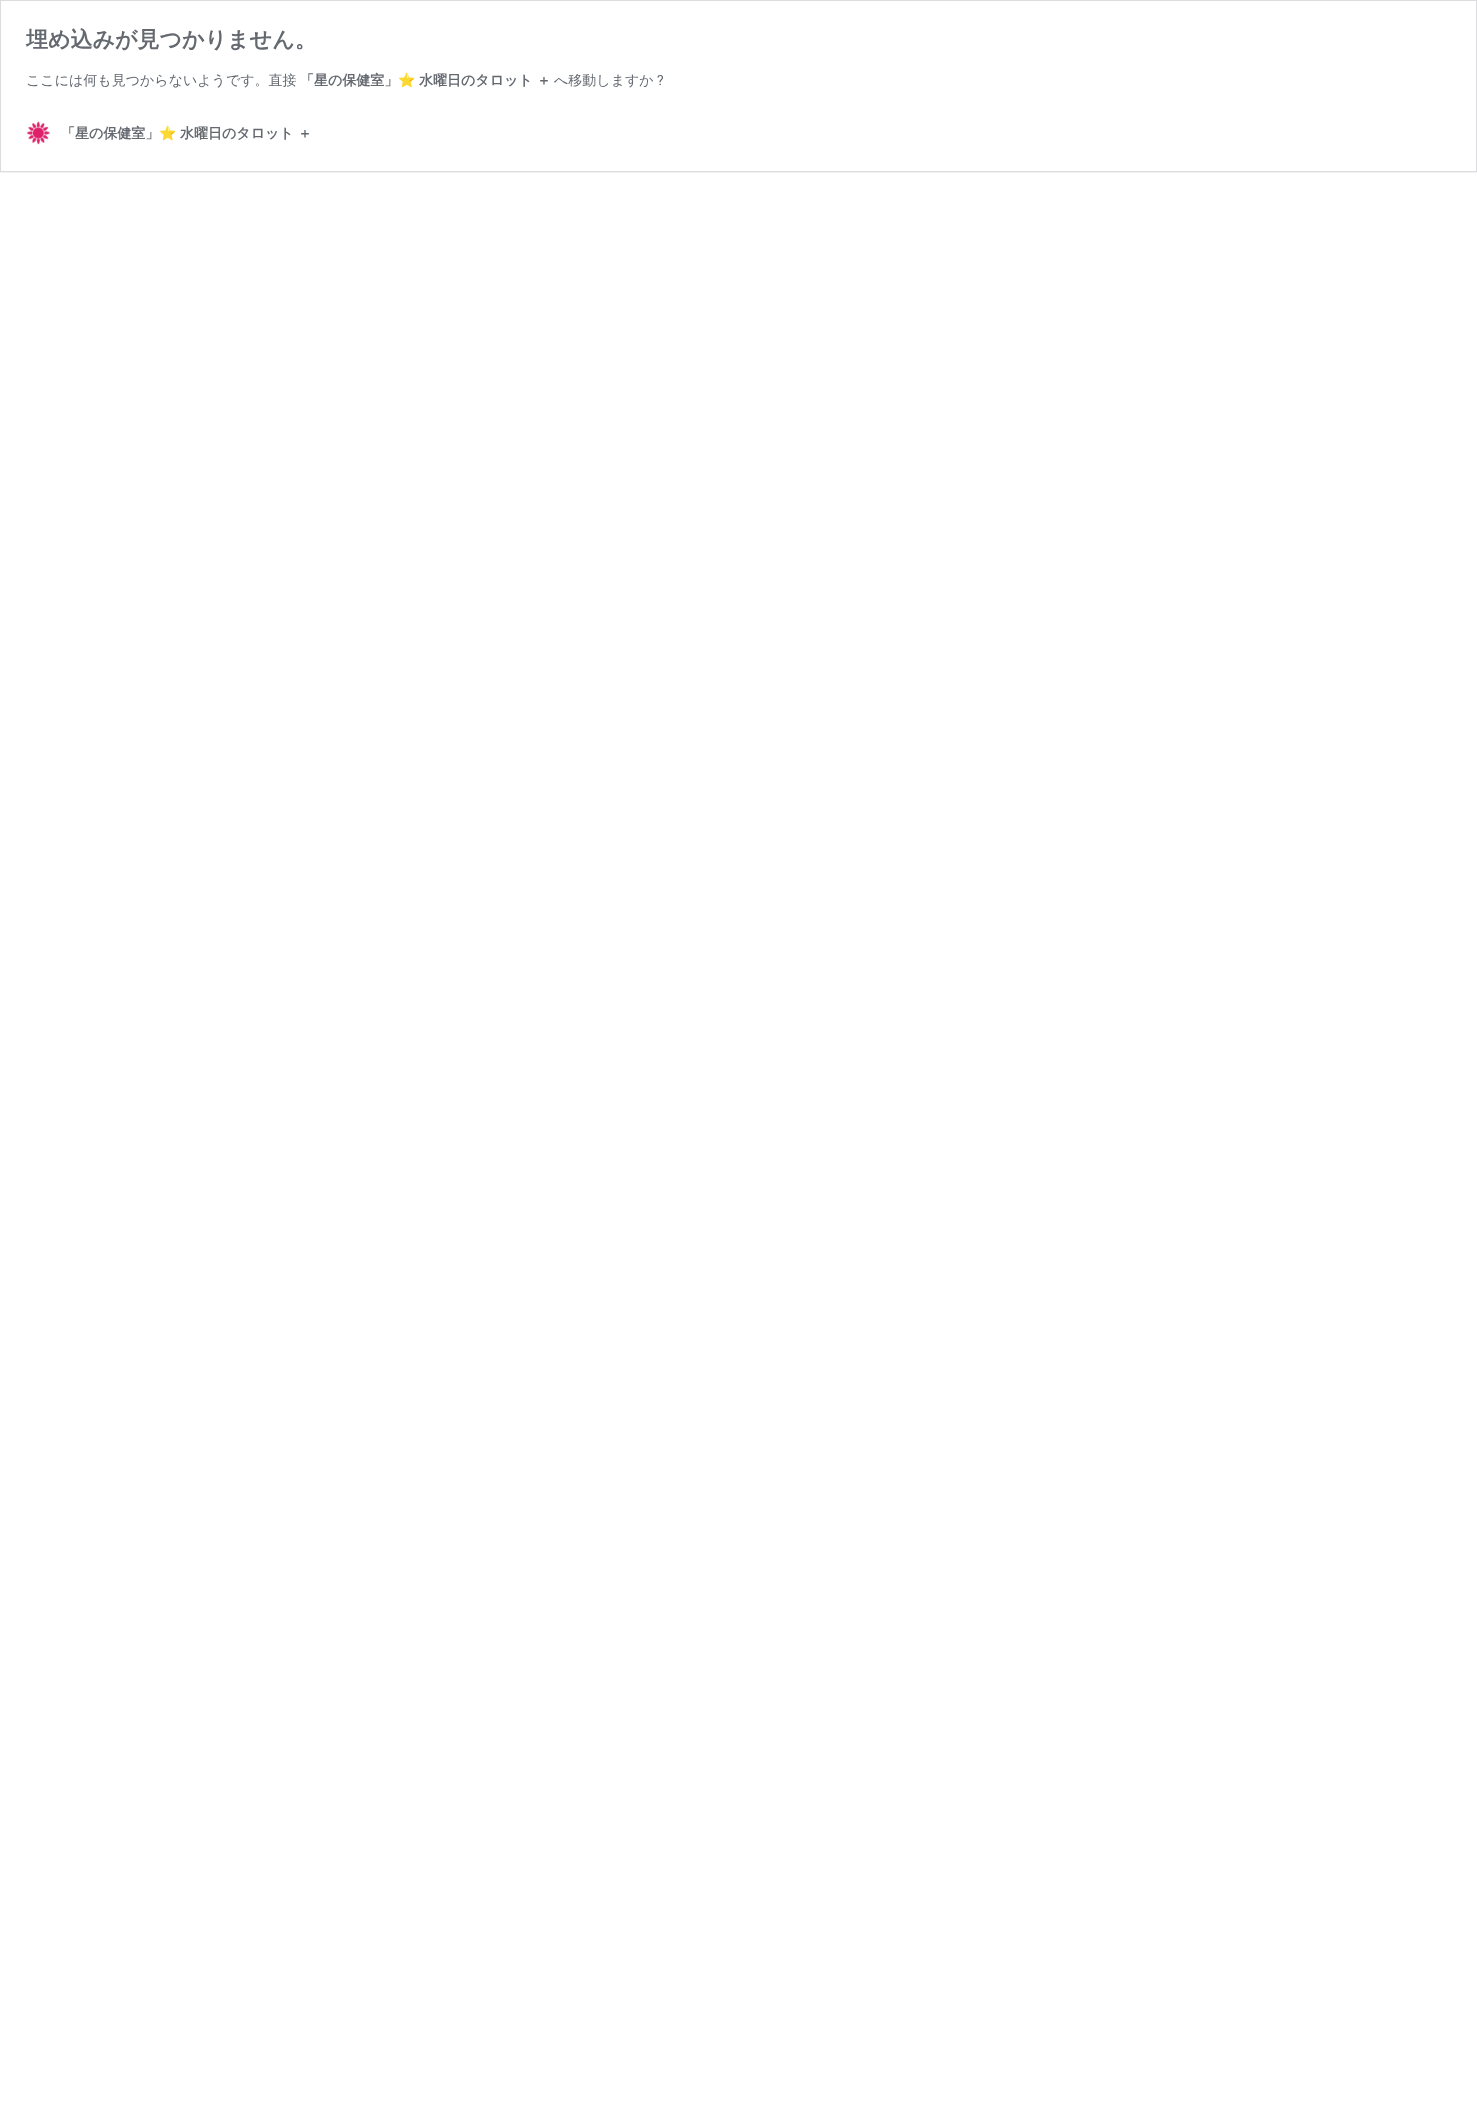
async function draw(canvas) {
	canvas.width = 1477;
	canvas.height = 2120;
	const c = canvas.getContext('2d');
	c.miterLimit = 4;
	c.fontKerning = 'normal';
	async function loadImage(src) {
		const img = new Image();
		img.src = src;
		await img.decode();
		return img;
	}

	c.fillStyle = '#fff';
	c.fillRect(0, 0, 1477, 2120);
	c.save();
	c.beginPath();
	c.rect(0, 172, 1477, 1);
	c.clip();
	c.fillStyle = '#0000000d';
	c.filter = 'blur(0.5px)';
	c.beginPath();
	c.rect(0, 1, 1477, 172);
	c.fill();
	c.filter = 'none';
	c.restore();
	c.strokeStyle = '#dcdcde';
	c.strokeRect(0.5, 0.5, 1476, 171);
	c.font = 'bold 22px WenQuanYi Zen Hei';
	c.fillStyle = '#646970';
	c.fillText('埋め込みが見つかりません。', 26, 47);
	c.font = '500 14px WenQuanYi Zen Hei';
	c.fillText('ここには何も見つからないようです。直接', 26, 85);
	c.font = 'bold 14px WenQuanYi Zen Hei';
	c.fillText('「星の保健室」', 300, 85);
	c.font = 'bold 14px Noto Color Emoji';
	c.fillText('⭐️', 398, 85);
	c.font = 'bold 14px WenQuanYi Zen Hei';
	c.fillText('水曜日のタロット ＋', 419, 85);
	c.font = '500 14px WenQuanYi Zen Hei';
	c.fillText('へ移動しますか', 554, 85);
	c.font = '14px Roboto';
	c.fillText('?', 657, 85);
	c.drawImage(await loadImage('img1.png'), 26, 121, 24, 24);
	c.font = 'bold 14px WenQuanYi Zen Hei';
	c.fillText('「星の保健室」', 61, 138);
	c.font = 'bold 14px Noto Color Emoji';
	c.fillText('⭐️', 159, 138);
	c.font = 'bold 14px WenQuanYi Zen Hei';
	c.fillText('水曜日のタロット ＋', 180, 138);
}

draw(document.querySelector('canvas'));
